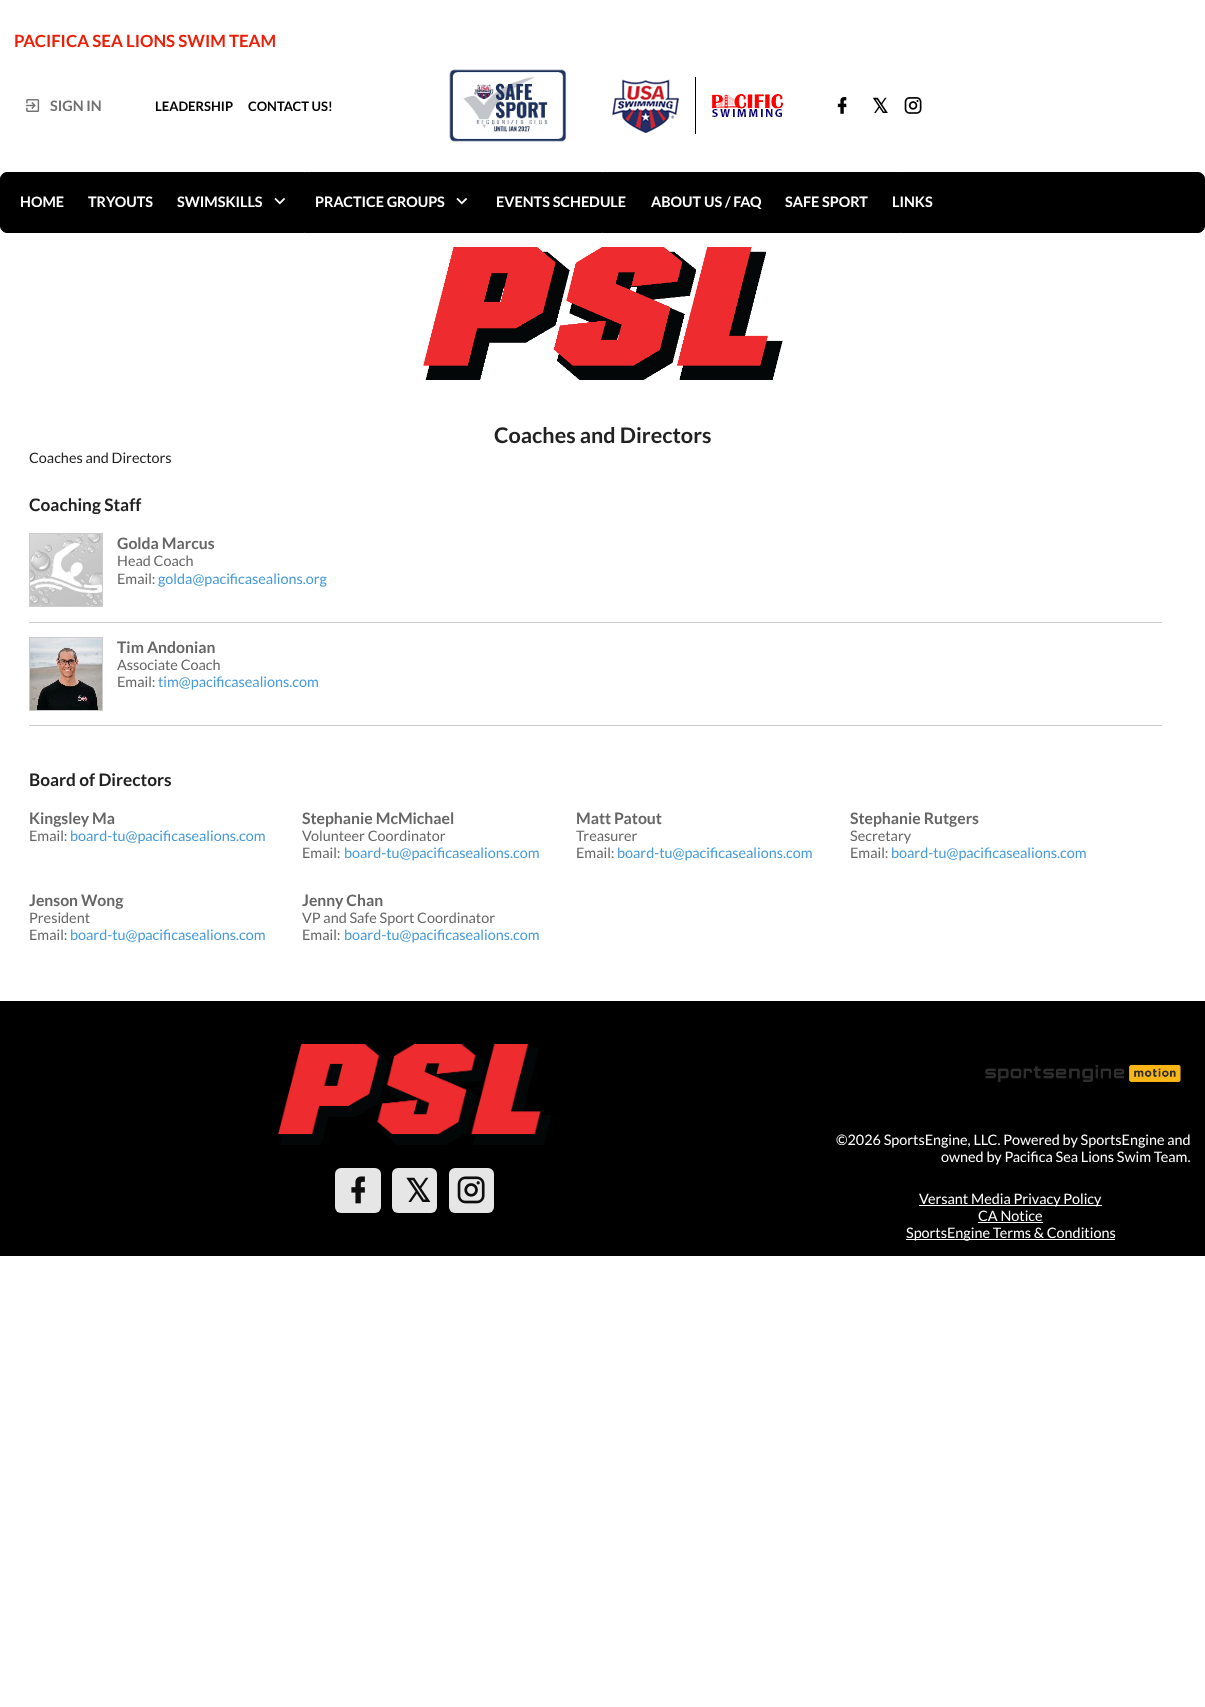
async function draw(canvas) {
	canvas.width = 1205;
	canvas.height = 1707;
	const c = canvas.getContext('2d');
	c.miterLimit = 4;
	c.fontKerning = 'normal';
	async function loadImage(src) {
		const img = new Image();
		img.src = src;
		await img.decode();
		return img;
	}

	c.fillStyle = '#fff';
	c.fillRect(0, 0, 1205, 1707);
	c.font = 'bold 16.8px Lato';
	c.fillStyle = '#eb1e07';
	c.fillText('PACIFICA SEA LIONS SWIM TEAM', 14, 47);
	c.drawImage(await loadImage('img1.png'), 26, 99, 14, 13);
	c.font = 'bold 14.4px Lato';
	c.fillStyle = '#717171';
	c.fillText('SIGN IN', 50, 111);
	c.font = 'bold 13px Lato';
	c.fillStyle = '#000';
	c.fillText('LEADERSHIP', 155, 111);
	c.fillText('CONTACT US!', 248, 111);
	c.drawImage(await loadImage('img2.png'), 449, 69, 118, 73);
	c.drawImage(await loadImage('img3.png'), 612, 79, 68, 55);
	c.fillRect(695, 77, 1, 57);
	c.drawImage(await loadImage('img4.png'), 712, 94, 71, 23);
	c.drawImage(await loadImage('img5.png'), 837, 97, 10, 17);
	c.font = 'bold 20px DejaVu Sans';
	c.fillText('𝕏', 872, 113);
	c.drawImage(await loadImage('img6.png'), 904, 97, 18, 17);
	c.beginPath();
	c.roundRect(0.5, 172.5, 1204, 60, 6.5);
	c.fill();
	c.strokeStyle = '#000';
	c.stroke();
	c.font = 'bold 14.4px Lato';
	c.fillStyle = '#fff';
	for (const [text, x, y] of [
		['HOME', 20, 207],
		['TRYOUTS', 88, 207],
		['SWIMSKILLS', 177, 207],
	]) {
		c.fillText(text, x, y);
	}
	c.drawImage(await loadImage('img7.png'), 274, 197, 12, 8);
	c.fillText('PRACTICE GROUPS', 315, 207);
	c.drawImage(await loadImage('img7.png'), 456, 197, 12, 8);
	for (const [text, x, y] of [
		['EVENTS SCHEDULE', 496, 207],
		['ABOUT US / FAQ', 651, 207],
		['SAFE SPORT', 785, 207],
		['LINKS', 892, 207],
	]) {
		c.fillText(text, x, y);
	}
	c.drawImage(await loadImage('img8.png'), 423, 247, 360, 133);
	c.font = 'bold 21.6px Lato';
	c.fillStyle = '#212121';
	c.fillText('Coaches and Directors', 494, 443);
	c.font = '14.4px Lato';
	c.fillText('Coaches and Directors', 29, 463);
	c.font = 'bold 17.25px Lato';
	c.fillText('Coaching Staff', 29, 511);
	c.fillStyle = '#ccc';
	c.fillRect(29, 622, 1133, 1);
	c.strokeStyle = '#ccc';
	c.strokeRect(29.5, 533.5, 73, 73);
	c.drawImage(await loadImage('img9.png'), 30, 534, 72, 72);
	c.font = 'bold 15.75px Lato';
	c.fillStyle = '#666';
	c.fillText('Golda Marcus', 117, 549);
	c.font = '14.4px Lato';
	c.fillText('Head Coach', 117, 566);
	c.fillText('Email:', 117, 584);
	c.fillStyle = '#469adb';
	c.fillText('golda@pacificasealions.org', 158, 584);
	c.fillStyle = '#ccc';
	c.fillRect(29, 725, 1133, 1);
	c.strokeRect(29.5, 637.5, 73, 73);
	c.drawImage(await loadImage('img10.png'), 30, 638, 72, 72);
	c.font = 'bold 15.75px Lato';
	c.fillStyle = '#666';
	c.fillText('Tim Andonian', 117, 653);
	c.font = '14.4px Lato';
	c.fillText('Associate Coach', 117, 670);
	c.fillText('Email:', 117, 687);
	c.fillStyle = '#469adb';
	c.fillText('tim@pacificasealions.com', 158, 687);
	c.font = 'bold 17.25px Lato';
	c.fillStyle = '#212121';
	c.fillText('Board of Directors', 29, 786);
	c.font = 'bold 15.75px Lato';
	c.fillStyle = '#666';
	c.fillText('Kingsley Ma', 29, 824);
	c.font = '14.4px Lato';
	c.fillText('Email:', 29, 841);
	c.fillStyle = '#469adb';
	c.fillText('board-tu@pacificasealions.com', 70, 841);
	c.font = 'bold 15.75px Lato';
	c.fillStyle = '#666';
	c.fillText('Stephanie McMichael', 302, 824);
	c.font = '14.4px Lato';
	c.fillText('Volunteer Coordinator', 302, 841);
	c.fillText('Email:', 302, 858);
	c.fillStyle = '#469adb';
	c.fillText('board-tu@pacificasealions.com', 344, 858);
	c.font = 'bold 15.75px Lato';
	c.fillStyle = '#666';
	c.fillText('Matt Patout', 576, 824);
	c.font = '14.4px Lato';
	c.fillText('Treasurer', 576, 841);
	c.fillText('Email:', 576, 858);
	c.fillStyle = '#469adb';
	c.fillText('board-tu@pacificasealions.com', 617, 858);
	c.font = 'bold 15.75px Lato';
	c.fillStyle = '#666';
	c.fillText('Stephanie Rutgers', 850, 824);
	c.font = '14.4px Lato';
	c.fillText('Secretary', 850, 841);
	c.fillText('Email:', 850, 858);
	c.fillStyle = '#469adb';
	c.fillText('board-tu@pacificasealions.com', 891, 858);
	c.font = 'bold 15.75px Lato';
	c.fillStyle = '#666';
	c.fillText('Jenson Wong', 29, 906);
	c.font = '14.4px Lato';
	c.fillText('President', 29, 923);
	c.fillText('Email:', 29, 940);
	c.fillStyle = '#469adb';
	c.fillText('board-tu@pacificasealions.com', 70, 940);
	c.font = 'bold 15.75px Lato';
	c.fillStyle = '#666';
	c.fillText('Jenny Chan', 302, 906);
	c.font = '14.4px Lato';
	c.fillText('VP and Safe Sport Coordinator', 302, 923);
	c.fillText('Email:', 302, 940);
	c.fillStyle = '#469adb';
	c.fillText('board-tu@pacificasealions.com', 344, 940);
	c.fillStyle = '#000';
	c.fillRect(0, 1001, 1205, 255);
	c.drawImage(await loadImage('img11.png'), 278, 1044, 273, 101);
	c.fillStyle = '#e6e6e6';
	c.beginPath();
	c.roundRect(335, 1168, 46, 45, 6);
	c.fill();
	c.drawImage(await loadImage('img12.png'), 351, 1176, 14, 28);
	c.beginPath();
	c.roundRect(392, 1168, 45, 45, 6);
	c.fill();
	c.font = 'bold 32px DejaVu Sans';
	c.fillStyle = '#0d0d0d';
	c.fillText('𝕏', 405, 1202);
	c.fillStyle = '#e6e6e6';
	c.beginPath();
	c.roundRect(449, 1168, 45, 45, 6);
	c.fill();
	c.drawImage(await loadImage('img13.png'), 457, 1176, 28, 28);
	c.drawImage(await loadImage('img14.png'), 985, 1065, 196, 17);
	c.font = '14.4px Lato';
	c.fillStyle = '#fff';
	c.fillText('©2026 SportsEngine, LLC. Powered by SportsEngine and', 836, 1145);
	c.fillText('owned by Pacifica Sea Lions Swim Team.', 941, 1162);
	c.fillRect(919, 1205, 183, 1);
	c.fillText('Versant Media Privacy Policy', 919, 1204);
	c.fillText('CA Notice', 978, 1221);
	c.fillRect(978, 1222, 65, 1);
	c.fillRect(906, 1239, 209, 1);
	c.fillText('SportsEngine Terms & Conditions', 906, 1238);
}

draw(document.querySelector('canvas'));
